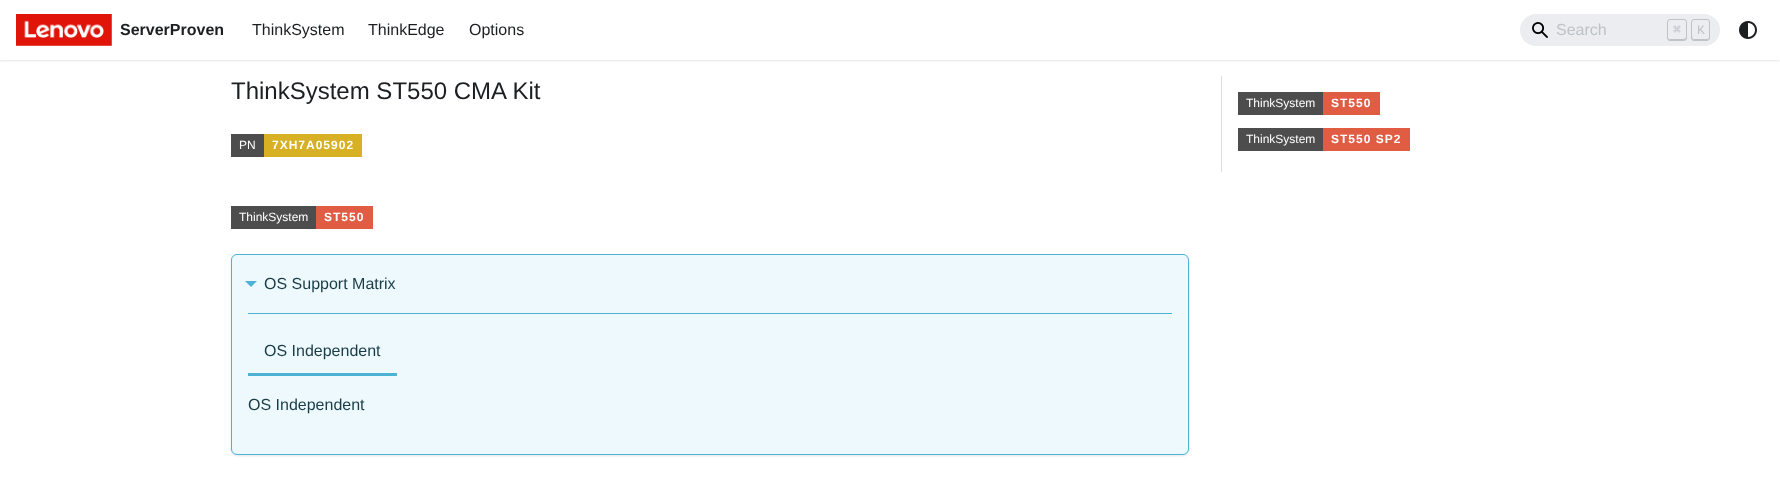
async function draw(canvas) {
	canvas.width = 1780;
	canvas.height = 489;
	const c = canvas.getContext('2d');
	c.miterLimit = 4;
	c.fontKerning = 'normal';
	async function loadImage(src) {
		const img = new Image();
		img.src = src;
		await img.decode();
		return img;
	}

	c.fillStyle = '#fff';
	c.fillRect(0, 0, 1780, 489);
	c.save();
	c.beginPath();
	c.rect(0, 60, 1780, 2);
	c.clip();
	c.fillStyle = '#0000001a';
	c.filter = 'blur(1px)';
	c.beginPath();
	c.rect(0, 1, 1780, 60);
	c.fill();
	c.filter = 'none';
	c.restore();
	c.drawImage(await loadImage('img1.png'), 16, 14, 96, 32);
	c.font = 'bold 16px Liberation Sans';
	c.fillStyle = '#1c1e21';
	c.fillText('ServerProven', 120, 35);
	c.font = '16px Liberation Sans';
	for (const [text, x, y] of [
		['ThinkSystem', 252, 35],
		['ThinkEdge', 368, 35],
		['Options', 469, 35],
	]) {
		c.fillText(text, x, y);
	}
	c.fillStyle = '#ebedf0';
	c.beginPath();
	c.roundRect(1520, 14, 200, 32, 16);
	c.fill();
	c.drawImage(await loadImage('img2.png'), 1532, 22, 16, 16);
	c.fillStyle = '#bec3c9';
	c.fillText('Search', 1556, 35);
	c.beginPath();
	c.moveTo(1686, 37);
	c.bezierCurveTo(1685.5, 38.5, 1684.5, 39, 1682, 39);
	c.lineTo(1670, 39);
	c.bezierCurveTo(1669, 39, 1668.5, 38.5, 1668, 37.5);
	c.bezierCurveTo(1668, 40.5, 1670.5, 40, 1672.5, 40);
	c.lineTo(1681.5, 40);
	c.bezierCurveTo(1684.5, 40, 1686, 40.5, 1686, 37);
	c.closePath();
	c.fill();
	c.beginPath();
	c.roundRect(1667.5, 19.5, 19, 21, 2.5);
	c.strokeStyle = '#bec3c9';
	c.stroke();
	c.font = '13px DejaVu Sans Mono';
	c.fillText('⌘', 1673, 34);
	c.beginPath();
	c.moveTo(1709, 37);
	c.bezierCurveTo(1709, 38, 1708, 39, 1707, 39);
	c.lineTo(1693, 39);
	c.lineTo(1692, 36.5);
	c.bezierCurveTo(1692, 40, 1693, 40, 1696, 40);
	c.lineTo(1705, 40);
	c.bezierCurveTo(1708, 40, 1709, 40, 1709, 37);
	c.closePath();
	c.fill();
	c.beginPath();
	c.roundRect(1691.5, 19.5, 18, 21, 2.5);
	c.stroke();
	c.font = '13px Liberation Mono';
	c.fillText('K', 1697, 34);
	c.drawImage(await loadImage('img3.png'), 1739, 21, 18, 18);
	c.font = '24px Liberation Sans';
	c.fillStyle = '#1c1e21';
	c.fillText('ThinkSystem ST550 CMA Kit', 231, 99);
	c.fillStyle = '#4d4d4d';
	c.fillRect(231, 134, 33, 23);
	c.font = '12px Liberation Sans';
	c.fillStyle = '#fff';
	c.fillText('PN', 239, 149);
	c.fillStyle = '#d8b024';
	c.fillRect(264, 134, 98, 23);
	c.letterSpacing = '1px';
	c.font = 'bold 12px Liberation Sans';
	c.fillStyle = '#fff';
	c.fillText('7XH7A05902', 272, 149);
	c.fillStyle = '#4d4d4d';
	c.fillRect(231, 206, 85, 23);
	c.letterSpacing = '0px';
	c.font = '12px Liberation Sans';
	c.fillStyle = '#fff';
	c.fillText('ThinkSystem', 239, 221);
	c.fillStyle = '#e05d44';
	c.fillRect(316, 206, 57, 23);
	c.letterSpacing = '1px';
	c.font = 'bold 12px Liberation Sans';
	c.fillStyle = '#fff';
	c.fillText('ST550', 324, 221);
	c.fillStyle = '#0000001a';
	c.filter = 'blur(1px)';
	c.beginPath();
	c.roundRect(231, 255, 958, 201, 6);
	c.fill();
	c.filter = 'none';
	c.fillStyle = '#eef9fd';
	c.beginPath();
	c.roundRect(231.5, 254.5, 957, 200, 5.5);
	c.fill();
	c.strokeStyle = '#4cb3d4';
	c.stroke();
	c.fillStyle = '#4cb3d4';
	c.beginPath();
	c.moveTo(245, 281);
	c.lineTo(257, 281);
	c.lineTo(251, 287);
	c.closePath();
	c.fill();
	c.letterSpacing = '0px';
	c.font = '16px Liberation Sans';
	c.fillStyle = '#193c47';
	c.fillText('OS Support Matrix', 264, 289);
	c.fillStyle = '#4cb3d4';
	c.fillRect(248, 313, 924, 1);
	c.fillRect(248, 373, 149, 3);
	c.fillStyle = '#193c47';
	c.fillText('OS Independent', 264, 356);
	c.fillText('OS Independent', 248, 410);
	c.fillStyle = '#dadde1';
	c.fillRect(1221, 76, 1, 96);
	c.fillStyle = '#4d4d4d';
	c.fillRect(1238, 92, 85, 23);
	c.font = '12px Liberation Sans';
	c.fillStyle = '#fff';
	c.fillText('ThinkSystem', 1246, 107);
	c.fillStyle = '#e05d44';
	c.fillRect(1323, 92, 57, 23);
	c.letterSpacing = '1px';
	c.font = 'bold 12px Liberation Sans';
	c.fillStyle = '#fff';
	c.fillText('ST550', 1331, 107);
	c.fillStyle = '#4d4d4d';
	c.fillRect(1238, 128, 85, 23);
	c.letterSpacing = '0px';
	c.font = '12px Liberation Sans';
	c.fillStyle = '#fff';
	c.fillText('ThinkSystem', 1246, 143);
	c.fillStyle = '#e05d44';
	c.fillRect(1323, 128, 87, 23);
	c.letterSpacing = '1px';
	c.font = 'bold 12px Liberation Sans';
	c.fillStyle = '#fff';
	c.fillText('ST550 SP2', 1331, 143);
}

draw(document.querySelector('canvas'));
